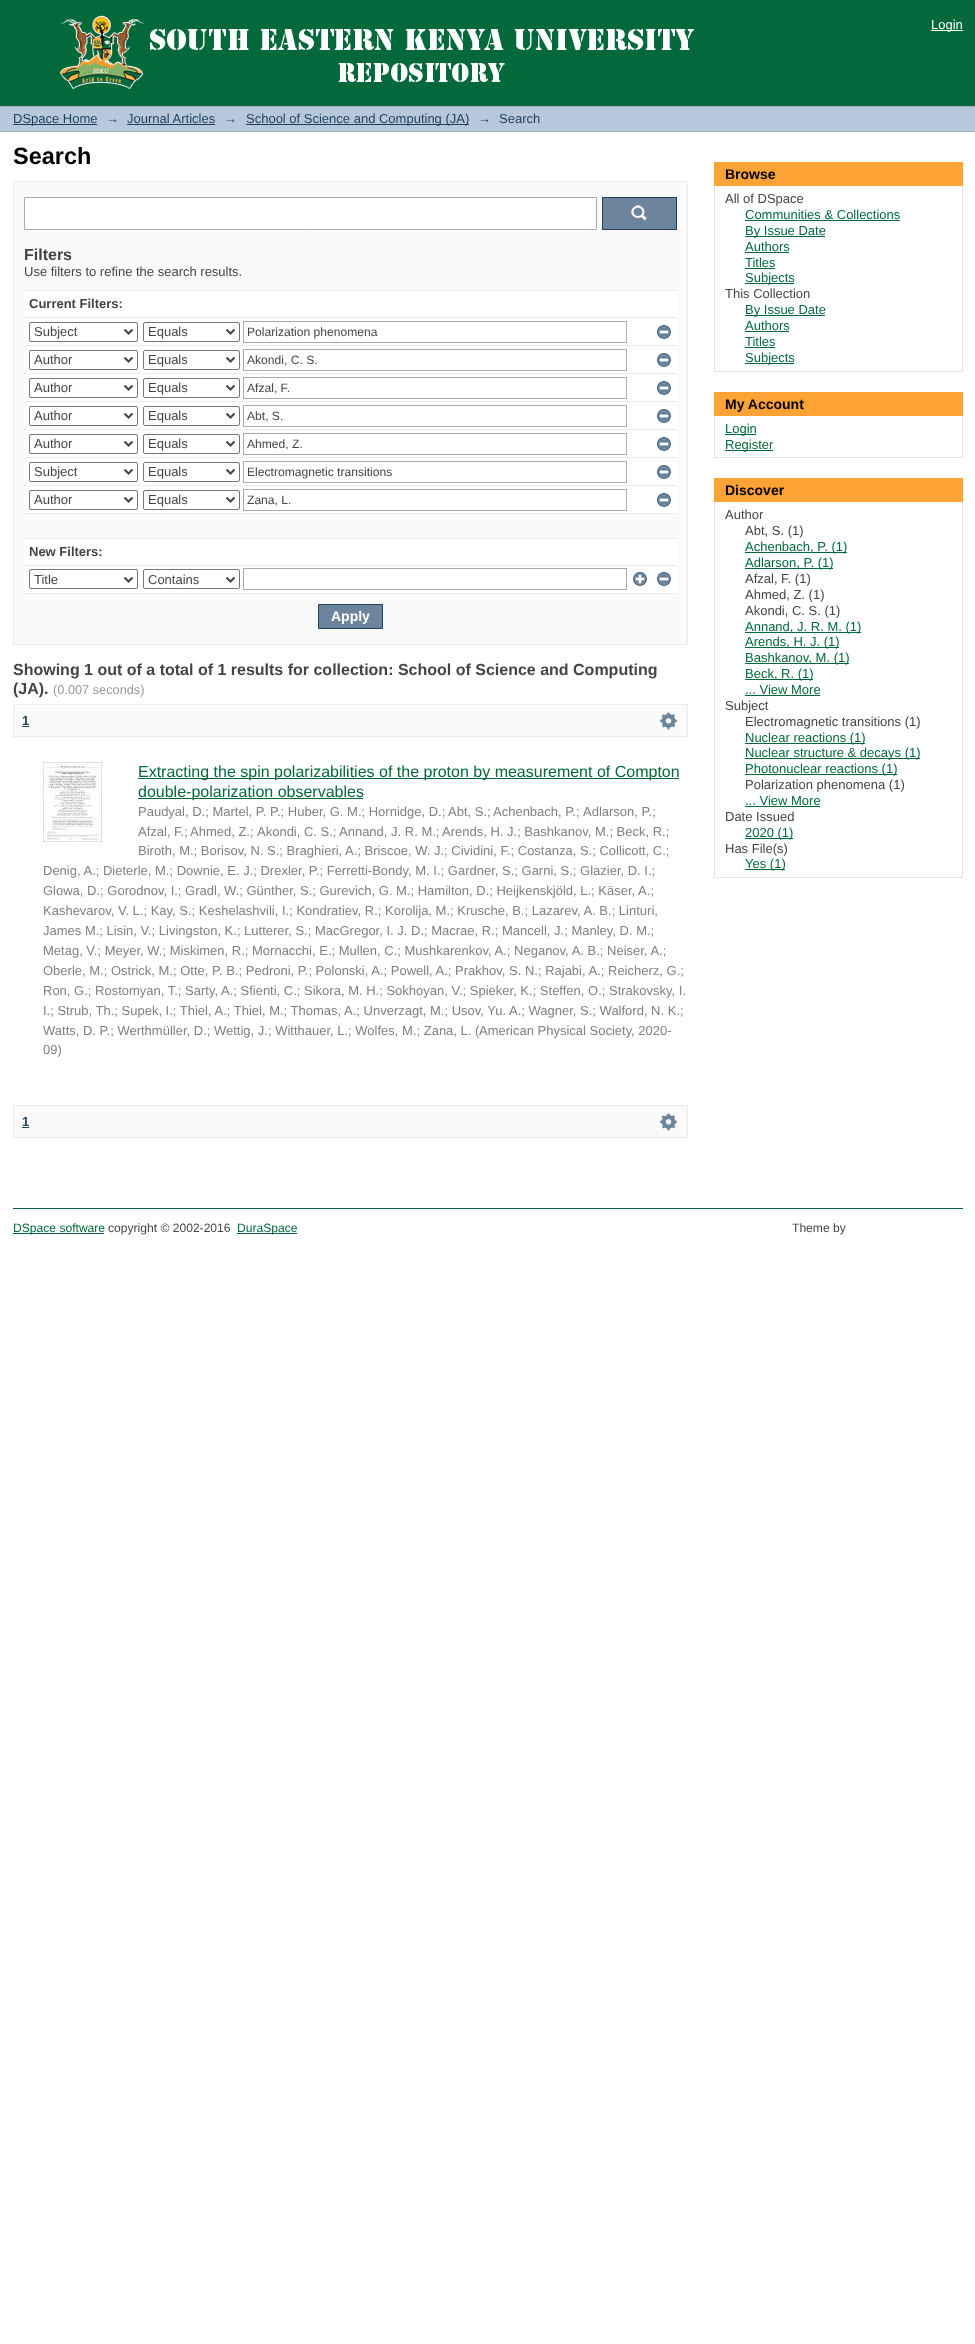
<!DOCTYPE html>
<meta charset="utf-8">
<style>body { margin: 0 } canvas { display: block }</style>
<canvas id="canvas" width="975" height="2344"></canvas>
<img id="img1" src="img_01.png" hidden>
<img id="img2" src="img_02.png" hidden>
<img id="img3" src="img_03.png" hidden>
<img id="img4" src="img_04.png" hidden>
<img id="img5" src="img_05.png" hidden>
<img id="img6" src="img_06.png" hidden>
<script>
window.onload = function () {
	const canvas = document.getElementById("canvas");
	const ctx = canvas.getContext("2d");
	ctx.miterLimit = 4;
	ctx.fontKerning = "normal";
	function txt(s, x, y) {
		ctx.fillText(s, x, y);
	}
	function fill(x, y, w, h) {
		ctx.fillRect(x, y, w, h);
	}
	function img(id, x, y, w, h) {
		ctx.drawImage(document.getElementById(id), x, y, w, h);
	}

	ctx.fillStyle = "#FFFFFF";
	fill(0, 0, 975, 2344);
	ctx.fillStyle = "#03693A";
	fill(0, 0, 975, 106);
	img("img1", 60, 15, 634, 74);
	ctx.fillStyle = "#FFFFFF";
	fill(931, 30, 32, 1);
	ctx.fillStyle = "#B6C8D9";
	fill(0, 107, 975, 24);
	ctx.fillStyle = "#9CACBA";
	fill(0, 106, 975, 1);
	fill(0, 131, 975, 1);
	ctx.fillStyle = "#1F3F5E";
	fill(13, 124, 84, 1);
	fill(127, 124, 88, 1);
	fill(246, 124, 223, 1);
	ctx.fillStyle = "#FAFAFA";
	ctx.beginPath();
	ctx.rect(13.5, 181.5, 674, 463);
	ctx.fill();
	ctx.strokeStyle = "#EBEBEB";
	ctx.stroke();
	ctx.fillStyle = "#FFFFFF";
	ctx.beginPath();
	ctx.rect(24.5, 197.5, 572, 32);
	ctx.fill();
	ctx.strokeStyle = "#AAAAAA";
	ctx.stroke();
	ctx.fillStyle = "#6D859C";
	fill(603, 198, 73, 31);
	img("img2", 631, 205, 16, 16);
	ctx.strokeStyle = "#1F3F5E";
	ctx.strokeRect(602.5, 197.5, 74, 32);
	ctx.fillStyle = "#FFFFFF";
	fill(24, 291, 653, 302);
	ctx.fillStyle = "#EBEBEB";
	fill(23, 290, 654, 1);
	fill(23, 317, 654, 1);
	ctx.beginPath();
	ctx.roundRect(29.5, 322.5, 108, 19, 1.5);
	ctx.strokeStyle = "#767676";
	ctx.stroke();
	ctx.beginPath();
	ctx.moveTo(124.5, 329.5);
	ctx.lineTo(128.5, 333.5);
	ctx.lineTo(132.5, 329.5);
	ctx.strokeStyle = "#444444";
	ctx.lineWidth = 2;
	ctx.stroke();
	ctx.beginPath();
	ctx.roundRect(143.5, 322.5, 96, 19, 1.5);
	ctx.strokeStyle = "#767676";
	ctx.lineWidth = 1;
	ctx.stroke();
	ctx.beginPath();
	ctx.moveTo(226.5, 329.5);
	ctx.lineTo(230.5, 333.5);
	ctx.lineTo(234.5, 329.5);
	ctx.strokeStyle = "#444444";
	ctx.lineWidth = 2;
	ctx.stroke();
	ctx.strokeStyle = "#AAAAAA";
	ctx.lineWidth = 1;
	ctx.strokeRect(243.5, 321.5, 383, 21);
	img("img3", 657, 325, 14, 14);
	fill(23, 345, 654, 1);
	ctx.beginPath();
	ctx.roundRect(29.5, 350.5, 108, 19, 1.5);
	ctx.strokeStyle = "#767676";
	ctx.stroke();
	ctx.beginPath();
	ctx.moveTo(124.5, 357.5);
	ctx.lineTo(128.5, 361.5);
	ctx.lineTo(132.5, 357.5);
	ctx.strokeStyle = "#444444";
	ctx.lineWidth = 2;
	ctx.stroke();
	ctx.beginPath();
	ctx.roundRect(143.5, 350.5, 96, 19, 1.5);
	ctx.strokeStyle = "#767676";
	ctx.lineWidth = 1;
	ctx.stroke();
	ctx.beginPath();
	ctx.moveTo(226.5, 357.5);
	ctx.lineTo(230.5, 361.5);
	ctx.lineTo(234.5, 357.5);
	ctx.strokeStyle = "#444444";
	ctx.lineWidth = 2;
	ctx.stroke();
	ctx.strokeStyle = "#AAAAAA";
	ctx.lineWidth = 1;
	ctx.strokeRect(243.5, 349.5, 383, 21);
	img("img3", 657, 353, 14, 14);
	fill(23, 373, 654, 1);
	ctx.beginPath();
	ctx.roundRect(29.5, 378.5, 108, 19, 1.5);
	ctx.strokeStyle = "#767676";
	ctx.stroke();
	ctx.beginPath();
	ctx.moveTo(124.5, 385.5);
	ctx.lineTo(128.5, 389.5);
	ctx.lineTo(132.5, 385.5);
	ctx.strokeStyle = "#444444";
	ctx.lineWidth = 2;
	ctx.stroke();
	ctx.beginPath();
	ctx.roundRect(143.5, 378.5, 96, 19, 1.5);
	ctx.strokeStyle = "#767676";
	ctx.lineWidth = 1;
	ctx.stroke();
	ctx.beginPath();
	ctx.moveTo(226.5, 385.5);
	ctx.lineTo(230.5, 389.5);
	ctx.lineTo(234.5, 385.5);
	ctx.strokeStyle = "#444444";
	ctx.lineWidth = 2;
	ctx.stroke();
	ctx.strokeStyle = "#AAAAAA";
	ctx.lineWidth = 1;
	ctx.strokeRect(243.5, 377.5, 383, 21);
	img("img3", 657, 381, 14, 14);
	fill(23, 401, 654, 1);
	ctx.beginPath();
	ctx.roundRect(29.5, 406.5, 108, 19, 1.5);
	ctx.strokeStyle = "#767676";
	ctx.stroke();
	ctx.beginPath();
	ctx.moveTo(124.5, 413.5);
	ctx.lineTo(128.5, 417.5);
	ctx.lineTo(132.5, 413.5);
	ctx.strokeStyle = "#444444";
	ctx.lineWidth = 2;
	ctx.stroke();
	ctx.beginPath();
	ctx.roundRect(143.5, 406.5, 96, 19, 1.5);
	ctx.strokeStyle = "#767676";
	ctx.lineWidth = 1;
	ctx.stroke();
	ctx.beginPath();
	ctx.moveTo(226.5, 413.5);
	ctx.lineTo(230.5, 417.5);
	ctx.lineTo(234.5, 413.5);
	ctx.strokeStyle = "#444444";
	ctx.lineWidth = 2;
	ctx.stroke();
	ctx.strokeStyle = "#AAAAAA";
	ctx.lineWidth = 1;
	ctx.strokeRect(243.5, 405.5, 383, 21);
	img("img3", 657, 409, 14, 14);
	fill(23, 429, 654, 1);
	ctx.beginPath();
	ctx.roundRect(29.5, 434.5, 108, 19, 1.5);
	ctx.strokeStyle = "#767676";
	ctx.stroke();
	ctx.beginPath();
	ctx.moveTo(124.5, 441.5);
	ctx.lineTo(128.5, 445.5);
	ctx.lineTo(132.5, 441.5);
	ctx.strokeStyle = "#444444";
	ctx.lineWidth = 2;
	ctx.stroke();
	ctx.beginPath();
	ctx.roundRect(143.5, 434.5, 96, 19, 1.5);
	ctx.strokeStyle = "#767676";
	ctx.lineWidth = 1;
	ctx.stroke();
	ctx.beginPath();
	ctx.moveTo(226.5, 441.5);
	ctx.lineTo(230.5, 445.5);
	ctx.lineTo(234.5, 441.5);
	ctx.strokeStyle = "#444444";
	ctx.lineWidth = 2;
	ctx.stroke();
	ctx.strokeStyle = "#AAAAAA";
	ctx.lineWidth = 1;
	ctx.strokeRect(243.5, 433.5, 383, 21);
	img("img3", 657, 437, 14, 14);
	fill(23, 457, 654, 1);
	ctx.beginPath();
	ctx.roundRect(29.5, 462.5, 108, 19, 1.5);
	ctx.strokeStyle = "#767676";
	ctx.stroke();
	ctx.beginPath();
	ctx.moveTo(124.5, 469.5);
	ctx.lineTo(128.5, 473.5);
	ctx.lineTo(132.5, 469.5);
	ctx.strokeStyle = "#444444";
	ctx.lineWidth = 2;
	ctx.stroke();
	ctx.beginPath();
	ctx.roundRect(143.5, 462.5, 96, 19, 1.5);
	ctx.strokeStyle = "#767676";
	ctx.lineWidth = 1;
	ctx.stroke();
	ctx.beginPath();
	ctx.moveTo(226.5, 469.5);
	ctx.lineTo(230.5, 473.5);
	ctx.lineTo(234.5, 469.5);
	ctx.strokeStyle = "#444444";
	ctx.lineWidth = 2;
	ctx.stroke();
	ctx.strokeStyle = "#AAAAAA";
	ctx.lineWidth = 1;
	ctx.strokeRect(243.5, 461.5, 383, 21);
	img("img3", 657, 465, 14, 14);
	fill(23, 485, 654, 1);
	ctx.beginPath();
	ctx.roundRect(29.5, 490.5, 108, 19, 1.5);
	ctx.strokeStyle = "#767676";
	ctx.stroke();
	ctx.beginPath();
	ctx.moveTo(124.5, 497.5);
	ctx.lineTo(128.5, 501.5);
	ctx.lineTo(132.5, 497.5);
	ctx.strokeStyle = "#444444";
	ctx.lineWidth = 2;
	ctx.stroke();
	ctx.beginPath();
	ctx.roundRect(143.5, 490.5, 96, 19, 1.5);
	ctx.strokeStyle = "#767676";
	ctx.lineWidth = 1;
	ctx.stroke();
	ctx.beginPath();
	ctx.moveTo(226.5, 497.5);
	ctx.lineTo(230.5, 501.5);
	ctx.lineTo(234.5, 497.5);
	ctx.strokeStyle = "#444444";
	ctx.lineWidth = 2;
	ctx.stroke();
	ctx.strokeStyle = "#AAAAAA";
	ctx.lineWidth = 1;
	ctx.strokeRect(243.5, 489.5, 383, 21);
	img("img3", 657, 493, 14, 14);
	ctx.fillStyle = "#FAFAFA";
	fill(24, 514, 653, 24);
	ctx.fillStyle = "#EBEBEB";
	fill(23, 513, 654, 1);
	fill(23, 538, 654, 1);
	fill(23, 565, 654, 1);
	ctx.beginPath();
	ctx.roundRect(29.5, 569.5, 108, 19, 1.5);
	ctx.strokeStyle = "#767676";
	ctx.stroke();
	ctx.beginPath();
	ctx.moveTo(124.5, 577.5);
	ctx.lineTo(128.5, 581.5);
	ctx.lineTo(132.5, 577.5);
	ctx.strokeStyle = "#444444";
	ctx.lineWidth = 2;
	ctx.stroke();
	ctx.beginPath();
	ctx.roundRect(143.5, 569.5, 96, 19, 1.5);
	ctx.strokeStyle = "#767676";
	ctx.lineWidth = 1;
	ctx.stroke();
	ctx.beginPath();
	ctx.moveTo(226.5, 577.5);
	ctx.lineTo(230.5, 581.5);
	ctx.lineTo(234.5, 577.5);
	ctx.strokeStyle = "#444444";
	ctx.lineWidth = 2;
	ctx.stroke();
	ctx.strokeStyle = "#AAAAAA";
	ctx.lineWidth = 1;
	ctx.strokeRect(243.5, 568.5, 383, 21);
	img("img4", 633, 572, 14, 14);
	img("img3", 657, 572, 14, 14);
	fill(23, 593, 654, 1);
	ctx.fillStyle = "#6D859C";
	ctx.beginPath();
	ctx.rect(318.5, 604.5, 64, 24);
	ctx.fill();
	ctx.strokeStyle = "#1F3F5E";
	ctx.stroke();
	ctx.fillStyle = "#FAFAFA";
	ctx.beginPath();
	ctx.rect(13.5, 704.5, 674, 32);
	ctx.fill();
	ctx.strokeStyle = "#EBEBEB";
	ctx.stroke();
	ctx.fillStyle = "#1F3F5E";
	fill(22, 726, 7, 1);
	img("img5", 660, 712, 17, 18);
	img("img6", 43, 762, 59, 80);
	ctx.fillStyle = "#03693A";
	fill(138, 778, 541, 1);
	fill(138, 798, 225, 1);
	ctx.fillStyle = "#FAFAFA";
	ctx.beginPath();
	ctx.rect(13.5, 1105.5, 674, 32);
	ctx.fill();
	ctx.stroke();
	ctx.fillStyle = "#1F3F5E";
	fill(22, 1127, 7, 1);
	img("img5", 660, 1113, 17, 18);
	ctx.fillStyle = "#FDA336";
	fill(714, 162, 249, 24);
	ctx.fillStyle = "#D8E8EB";
	fill(962, 186, 1, 186);
	fill(714, 371, 249, 1);
	fill(714, 186, 1, 186);
	ctx.fillStyle = "#03693A";
	fill(745, 220, 155, 1);
	fill(745, 236, 80, 1);
	fill(745, 252, 44, 1);
	fill(745, 268, 30, 1);
	fill(745, 283, 49, 1);
	fill(745, 315, 80, 1);
	fill(745, 331, 44, 1);
	fill(745, 347, 30, 1);
	fill(745, 363, 49, 1);
	ctx.fillStyle = "#FDA336";
	fill(714, 392, 249, 24);
	ctx.fillStyle = "#D8E8EB";
	fill(962, 416, 1, 42);
	fill(714, 457, 249, 1);
	fill(714, 416, 1, 42);
	ctx.fillStyle = "#03693A";
	fill(725, 434, 31, 1);
	fill(725, 450, 48, 1);
	ctx.fillStyle = "#FDA336";
	fill(714, 478, 249, 24);
	ctx.fillStyle = "#D8E8EB";
	fill(962, 502, 1, 376);
	fill(714, 877, 249, 1);
	fill(714, 502, 1, 376);
	ctx.fillStyle = "#03693A";
	fill(745, 552, 102, 1);
	fill(745, 568, 88, 1);
	fill(745, 632, 116, 1);
	fill(745, 647, 94, 1);
	fill(745, 663, 104, 1);
	fill(745, 679, 68, 1);
	fill(745, 695, 75, 1);
	fill(745, 743, 120, 1);
	fill(745, 758, 175, 1);
	fill(745, 774, 152, 1);
	fill(745, 806, 75, 1);
	fill(745, 838, 48, 1);
	fill(745, 869, 40, 1);
	fill(13, 1208, 950, 1);
	fill(13, 1233, 91, 1);
	fill(237, 1233, 60, 1);
	ctx.font = "13px Liberation Sans";
	ctx.fillStyle = "#FFFFFF";
	txt("Login", 931, 29);
	ctx.fillStyle = "#1F3F5E";
	txt("DSpace Home", 13, 123);
	txt("→", 106, 123);
	txt("Journal Articles", 127, 123);
	txt("→", 224, 123);
	txt("School of Science and Computing (JA)", 246, 123);
	txt("→", 478, 123);
	txt("Search", 499, 123);
	ctx.font = "bold 23.5px Liberation Sans";
	ctx.fillStyle = "#000000";
	txt("Search", 13, 164);
	ctx.font = "bold 16px Liberation Sans";
	ctx.fillStyle = "#444444";
	txt("Filters", 24, 260);
	ctx.font = "13px Liberation Sans";
	txt("Use filters to refine the search results.", 24, 276);
	ctx.font = "bold 13px Liberation Sans";
	txt("Current Filters:", 29, 308);
	ctx.font = "13px Liberation Sans";
	txt("Subject", 34, 336);
	txt("Equals", 148, 336);
	ctx.font = "12.1px Liberation Sans";
	txt("Polarization phenomena", 247, 336);
	ctx.font = "13px Liberation Sans";
	txt("Author", 34, 364);
	txt("Equals", 148, 364);
	ctx.font = "12.1px Liberation Sans";
	txt("Akondi, C. S.", 247, 364);
	ctx.font = "13px Liberation Sans";
	txt("Author", 34, 392);
	txt("Equals", 148, 392);
	ctx.font = "12.1px Liberation Sans";
	txt("Afzal, F.", 247, 392);
	ctx.font = "13px Liberation Sans";
	txt("Author", 34, 420);
	txt("Equals", 148, 420);
	ctx.font = "12.1px Liberation Sans";
	txt("Abt, S.", 247, 420);
	ctx.font = "13px Liberation Sans";
	txt("Author", 34, 448);
	txt("Equals", 148, 448);
	ctx.font = "12.1px Liberation Sans";
	txt("Ahmed, Z.", 247, 448);
	ctx.font = "13px Liberation Sans";
	txt("Subject", 34, 476);
	txt("Equals", 148, 476);
	ctx.font = "12.1px Liberation Sans";
	txt("Electromagnetic transitions", 247, 476);
	ctx.font = "13px Liberation Sans";
	txt("Author", 34, 504);
	txt("Equals", 148, 504);
	ctx.font = "12.1px Liberation Sans";
	txt("Zana, L.", 247, 504);
	ctx.font = "bold 13px Liberation Sans";
	txt("New Filters:", 29, 556);
	ctx.font = "13px Liberation Sans";
	txt("Title", 34, 584);
	txt("Contains", 148, 584);
	ctx.font = "bold 14px Liberation Sans";
	ctx.fillStyle = "#FFFFFF";
	txt("Apply", 331, 621);
	ctx.font = "bold 16px Liberation Sans";
	ctx.fillStyle = "#444444";
	txt("Showing 1 out of a total of 1 results for collection: School of Science and Computing", 13, 675);
	txt("(JA).", 13, 694);
	ctx.font = "12.75px Liberation Sans";
	ctx.fillStyle = "#999999";
	txt("(0.007 seconds)", 53, 694);
	ctx.font = "bold 13px Liberation Sans";
	ctx.fillStyle = "#1F3F5E";
	txt("1", 22, 725);
	ctx.font = "16px Liberation Sans";
	ctx.fillStyle = "#03693A";
	txt("Extracting the spin polarizabilities of the proton by measurement of Compton", 138, 777);
	txt("double-polarization observables", 138, 797);
	ctx.font = "13px Liberation Sans";
	ctx.fillStyle = "#808080";
	txt("Paudyal, D.; Martel, P. P.; Huber, G. M.; Hornidge, D.;", 138, 816);
	txt("Abt, S.;", 448, 816);
	txt("Achenbach, P.;", 493, 816);
	txt("Adlarson, P.;", 583, 816);
	txt("Afzal, F.;", 138, 836);
	txt("Ahmed, Z.;", 190, 836);
	txt("Akondi, C. S.;", 257, 836);
	txt("Annand, J. R. M.;", 339, 836);
	txt("Arends, H. J.; Bashkanov, M.; Beck, R.;", 442, 836);
	txt("Biroth, M.; Borisov, N. S.; Braghieri, A.; Briscoe, W. J.; Cividini, F.; Costanza, S.; Collicott, C.;", 138, 855);
	txt("Denig, A.; Dieterle, M.; Downie, E. J.; Drexler, P.; Ferretti-Bondy, M. I.; Gardner, S.; Garni, S.; Glazier, D. I.;", 43, 875);
	txt("Glowa, D.; Gorodnov, I.; Gradl, W.; Günther, S.; Gurevich, G. M.; Hamilton, D.; Heijkenskjöld, L.; Käser, A.;", 43, 895);
	txt("Kashevarov, V. L.; Kay, S.; Keshelashvili, I.; Kondratiev, R.; Korolija, M.; Krusche, B.; Lazarev, A. B.; Linturi,", 43, 915);
	txt("James M.; Lisin, V.; Livingston, K.; Lutterer, S.; MacGregor, I. J. D.; Macrae, R.; Mancell, J.; Manley, D. M.;", 43, 935);
	txt("Metag, V.; Meyer, W.; Miskimen, R.; Mornacchi, E.; Mullen, C.; Mushkarenkov, A.; Neganov, A. B.; Neiser, A.;", 43, 955);
	txt("Oberle, M.; Ostrick, M.; Otte, P. B.; Pedroni, P.; Polonski, A.; Powell, A.; Prakhov, S. N.; Rajabi, A.; Reicherz, G.;", 43, 975);
	txt("Ron, G.; Rostomyan, T.; Sarty, A.; Sfienti, C.; Sikora, M. H.; Sokhoyan, V.; Spieker, K.; Steffen, O.; Strakovsky, I.", 43, 995);
	txt("I.; Strub, Th.; Supek, I.; Thiel, A.; Thiel, M.; Thomas, A.; Unverzagt, M.; Usov, Yu. A.; Wagner, S.; Walford, N. K.;", 43, 1015);
	txt("Watts, D. P.; Werthmüller, D.; Wettig, J.; Witthauer, L.; Wolfes, M.; Zana, L. (", 43, 1035);
	txt("American Physical Society", 479, 1035);
	txt(", 2020-", 631, 1035);
	txt("09)", 43, 1054);
	ctx.font = "bold 13px Liberation Sans";
	ctx.fillStyle = "#1F3F5E";
	txt("1", 22, 1126);
	ctx.font = "bold 14px Liberation Sans";
	ctx.fillStyle = "#000000";
	txt("Browse", 725, 179);
	ctx.font = "13px Liberation Sans";
	ctx.fillStyle = "#444444";
	txt("All of DSpace", 725, 203);
	ctx.fillStyle = "#03693A";
	txt("Communities & Collections", 745, 219);
	txt("By Issue Date", 745, 235);
	txt("Authors", 745, 251);
	txt("Titles", 745, 267);
	txt("Subjects", 745, 282);
	ctx.fillStyle = "#444444";
	txt("This Collection", 725, 298);
	ctx.fillStyle = "#03693A";
	txt("By Issue Date", 745, 314);
	txt("Authors", 745, 330);
	txt("Titles", 745, 346);
	txt("Subjects", 745, 362);
	ctx.font = "bold 14px Liberation Sans";
	ctx.fillStyle = "#000000";
	txt("My Account", 725, 409);
	ctx.font = "13px Liberation Sans";
	ctx.fillStyle = "#03693A";
	txt("Login", 725, 433);
	txt("Register", 725, 449);
	ctx.font = "bold 14px Liberation Sans";
	ctx.fillStyle = "#000000";
	txt("Discover", 725, 495);
	ctx.font = "13px Liberation Sans";
	ctx.fillStyle = "#444444";
	txt("Author", 725, 519);
	txt("Abt, S. (1)", 745, 535);
	ctx.fillStyle = "#03693A";
	txt("Achenbach, P. (1)", 745, 551);
	txt("Adlarson, P. (1)", 745, 567);
	ctx.fillStyle = "#444444";
	txt("Afzal, F. (1)", 745, 583);
	txt("Ahmed, Z. (1)", 745, 599);
	txt("Akondi, C. S. (1)", 745, 615);
	ctx.fillStyle = "#03693A";
	txt("Annand, J. R. M. (1)", 745, 631);
	txt("Arends, H. J. (1)", 745, 646);
	txt("Bashkanov, M. (1)", 745, 662);
	txt("Beck, R. (1)", 745, 678);
	txt("... View More", 745, 694);
	ctx.fillStyle = "#444444";
	txt("Subject", 725, 710);
	txt("Electromagnetic transitions (1)", 745, 726);
	ctx.fillStyle = "#03693A";
	txt("Nuclear reactions (1)", 745, 742);
	txt("Nuclear structure & decays (1)", 745, 757);
	txt("Photonuclear reactions (1)", 745, 773);
	ctx.fillStyle = "#444444";
	txt("Polarization phenomena (1)", 745, 789);
	ctx.fillStyle = "#03693A";
	txt("... View More", 745, 805);
	ctx.fillStyle = "#444444";
	txt("Date Issued", 725, 821);
	ctx.fillStyle = "#03693A";
	txt("2020 (1)", 745, 837);
	ctx.fillStyle = "#444444";
	txt("Has File(s)", 725, 853);
	ctx.fillStyle = "#03693A";
	txt("Yes (1)", 745, 868);
	ctx.font = "12.1px Liberation Sans";
	txt("DSpace software", 13, 1232);
	ctx.fillStyle = "#444444";
	txt("copyright © 2002-2016", 108, 1232);
	ctx.fillStyle = "#03693A";
	txt("DuraSpace", 237, 1232);
	ctx.fillStyle = "#444444";
	txt("Theme by", 792, 1232);
};
</script>
